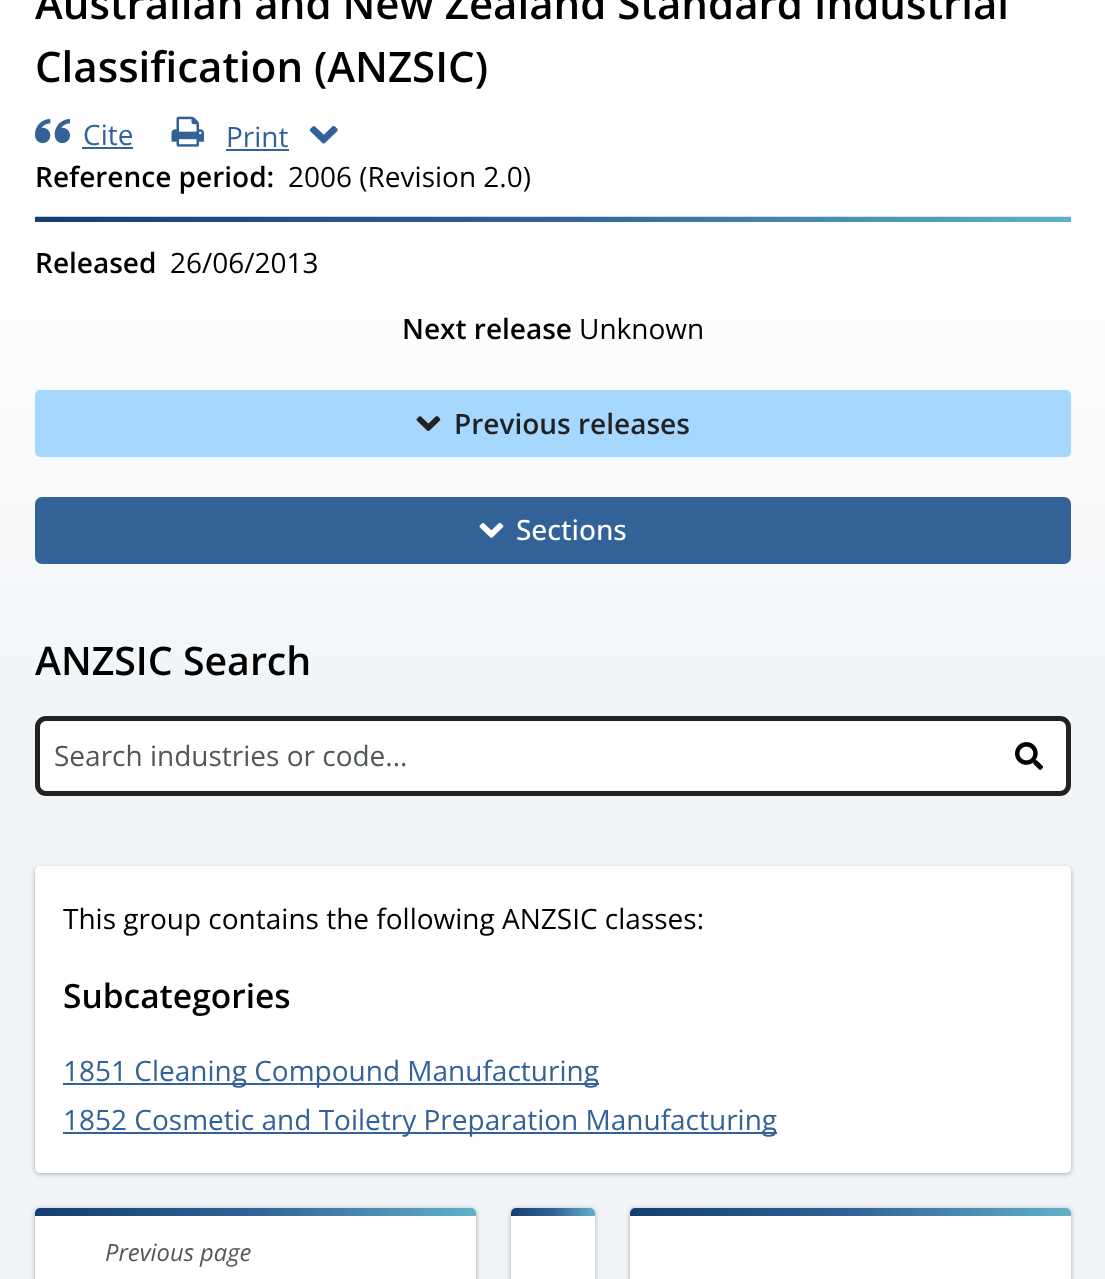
<!DOCTYPE html>
<meta charset="utf-8">
<style>body { margin: 0 } canvas { display: block }</style>
<canvas id="canvas" width="1105" height="1279"></canvas>
<img id="img1" src="img_01.png" hidden>
<img id="img2" src="img_02.png" hidden>
<img id="img3" src="img_03.png" hidden>
<img id="img4" src="img_04.png" hidden>
<img id="img5" src="img_05.png" hidden>
<img id="img6" src="img_06.png" hidden>
<img id="img7" src="img_07.png" hidden>
<script>
window.onload = function () {
	const canvas = document.getElementById("canvas");
	const ctx = canvas.getContext("2d");
	ctx.miterLimit = 4;
	ctx.fontKerning = "normal";
	function txt(s, x, y) {
		ctx.fillText(s, x, y);
	}
	function fill(x, y, w, h) {
		ctx.fillRect(x, y, w, h);
	}
	function round(x, y, w, h, r) {
		ctx.beginPath();
		ctx.roundRect(x, y, w, h, r);
		ctx.fill();
	}
	function img(id, x, y, w, h) {
		ctx.drawImage(document.getElementById(id), x, y, w, h);
	}
	let gradient;

	ctx.fillStyle = "#FFFFFF";
	fill(0, 0, 1105, 1279);
	gradient = ctx.createLinearGradient(553, -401, 553, 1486);
	gradient.addColorStop(0.33, "#FFFFFF");
	gradient.addColorStop(0.58, "#F2F5F8");
	ctx.fillStyle = gradient;
	fill(0, 312, 1105, 967);
	img("img1", 35, 119, 35, 25);
	ctx.fillStyle = "#326297";
	fill(82, 147, 51, 2);
	img("img2", 171, 116, 33, 31);
	fill(226, 149, 63, 2);
	img("img3", 309, 126, 29, 18);
	img("img4", 35, 216, 1036, 6);
	ctx.fillStyle = "#A6D8FF";
	round(35, 390, 1036, 67, 5);
	img("img5", 416, 416, 25, 16);
	ctx.fillStyle = "#326297";
	round(35, 497, 1036, 67, 7);
	img("img6", 479, 522, 25, 16);
	ctx.fillStyle = "#FFFFFF";
	ctx.beginPath();
	ctx.roundRect(37.5, 718.5, 1031, 75, 8.5);
	ctx.fill();
	ctx.strokeStyle = "#222222";
	ctx.lineWidth = 5;
	ctx.stroke();
	img("img7", 1015, 742, 28, 28);
	ctx.fillStyle = "rgba(0, 0, 0, 0.3)";
	ctx.filter = "blur(2.5px)";
	ctx.beginPath();
	ctx.roundRect(35, 868, 1036, 306, 5);
	ctx.fill();
	ctx.filter = "none";
	ctx.fillStyle = "#FFFFFF";
	round(35, 866, 1036, 307, 5);
	ctx.fillStyle = "#326297";
	fill(63, 1083, 536, 2);
	fill(63, 1132, 714, 2);
	ctx.fillStyle = "rgba(0, 0, 0, 0.3)";
	ctx.filter = "blur(2.5px)";
	ctx.beginPath();
	ctx.roundRect(35, 1209, 441, 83, 5);
	ctx.fill();
	ctx.filter = "none";
	ctx.fillStyle = "#FFFFFF";
	round(35, 1208, 441, 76, 5);
	gradient = ctx.createLinearGradient(35, 1212, 476, 1212);
	gradient.addColorStop(0, "#153D73");
	gradient.addColorStop(0.5, "#326297");
	gradient.addColorStop(1, "#60B1C8");
	ctx.fillStyle = gradient;
	ctx.beginPath();
	ctx.roundRect(35, 1208, 441, 8, [5, 5, 0, 0]);
	ctx.fill();
	ctx.fillStyle = "rgba(0, 0, 0, 0.3)";
	ctx.filter = "blur(2.5px)";
	ctx.beginPath();
	ctx.roundRect(511, 1209, 84, 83, 5);
	ctx.fill();
	ctx.filter = "none";
	ctx.fillStyle = "#FFFFFF";
	round(511, 1208, 84, 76, 5);
	gradient = ctx.createLinearGradient(511, 1212, 595, 1212);
	gradient.addColorStop(0, "#153D73");
	gradient.addColorStop(0.5, "#326297");
	gradient.addColorStop(1, "#60B1C8");
	ctx.fillStyle = gradient;
	ctx.beginPath();
	ctx.roundRect(511, 1208, 84, 8, [5, 5, 0, 0]);
	ctx.fill();
	ctx.fillStyle = "rgba(0, 0, 0, 0.3)";
	ctx.filter = "blur(2.5px)";
	ctx.beginPath();
	ctx.roundRect(630, 1209, 441, 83, 5);
	ctx.fill();
	ctx.filter = "none";
	ctx.fillStyle = "#FFFFFF";
	round(630, 1208, 441, 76, 5);
	gradient = ctx.createLinearGradient(630, 1212, 1071, 1212);
	gradient.addColorStop(0, "#153D73");
	gradient.addColorStop(0.5, "#326297");
	gradient.addColorStop(1, "#60B1C8");
	ctx.fillStyle = gradient;
	ctx.beginPath();
	ctx.roundRect(630, 1208, 441, 8, [5, 5, 0, 0]);
	ctx.fill();
	ctx.font = "600 42px Open Sans";
	ctx.fillStyle = "#000000";
	txt("Australian and New Zealand Standard Industrial", 35, 19);
	txt("Classification (ANZSIC)", 35, 82);
	ctx.font = "28px Open Sans";
	ctx.fillStyle = "#326297";
	txt("Cite", 83, 145);
	txt("Print", 226, 147);
	ctx.font = "600 28px Open Sans";
	ctx.fillStyle = "#000000";
	txt("Reference period:", 35, 187);
	ctx.font = "28px Open Sans";
	txt("2006 (Revision 2.0)", 288, 187);
	ctx.font = "600 28px Open Sans";
	txt("Released", 35, 273);
	ctx.font = "28px Open Sans";
	txt("26/06/2013", 170, 273);
	ctx.font = "600 28px Open Sans";
	txt("Next release", 402, 339);
	ctx.font = "28px Open Sans";
	txt("Unknown", 579, 339);
	ctx.font = "600 28px Open Sans";
	ctx.fillStyle = "#222222";
	txt("Previous releases", 454, 434);
	ctx.font = "500 28px Open Sans";
	ctx.fillStyle = "#FFFFFF";
	txt("Sections", 516, 540);
	ctx.font = "600 39.25px Open Sans";
	ctx.fillStyle = "#000000";
	txt("ANZSIC Search", 35, 675);
	ctx.font = "28px Open Sans";
	ctx.fillStyle = "#52575A";
	txt("Search industries or code...", 54, 766);
	ctx.fillStyle = "#000000";
	txt("This group contains the following ANZSIC classes:", 63, 929);
	ctx.font = "600 33.5px Open Sans";
	txt("Subcategories", 63, 1008);
	ctx.font = "28px Open Sans";
	ctx.fillStyle = "#326297";
	txt("1851 Cleaning Compound Manufacturing", 63, 1081);
	txt("1852 Cosmetic and Toiletry Preparation Manufacturing", 63, 1130);
	ctx.font = "italic 23.75px Open Sans";
	ctx.fillStyle = "#52575A";
	txt("Previous page", 105, 1261);
};
</script>
